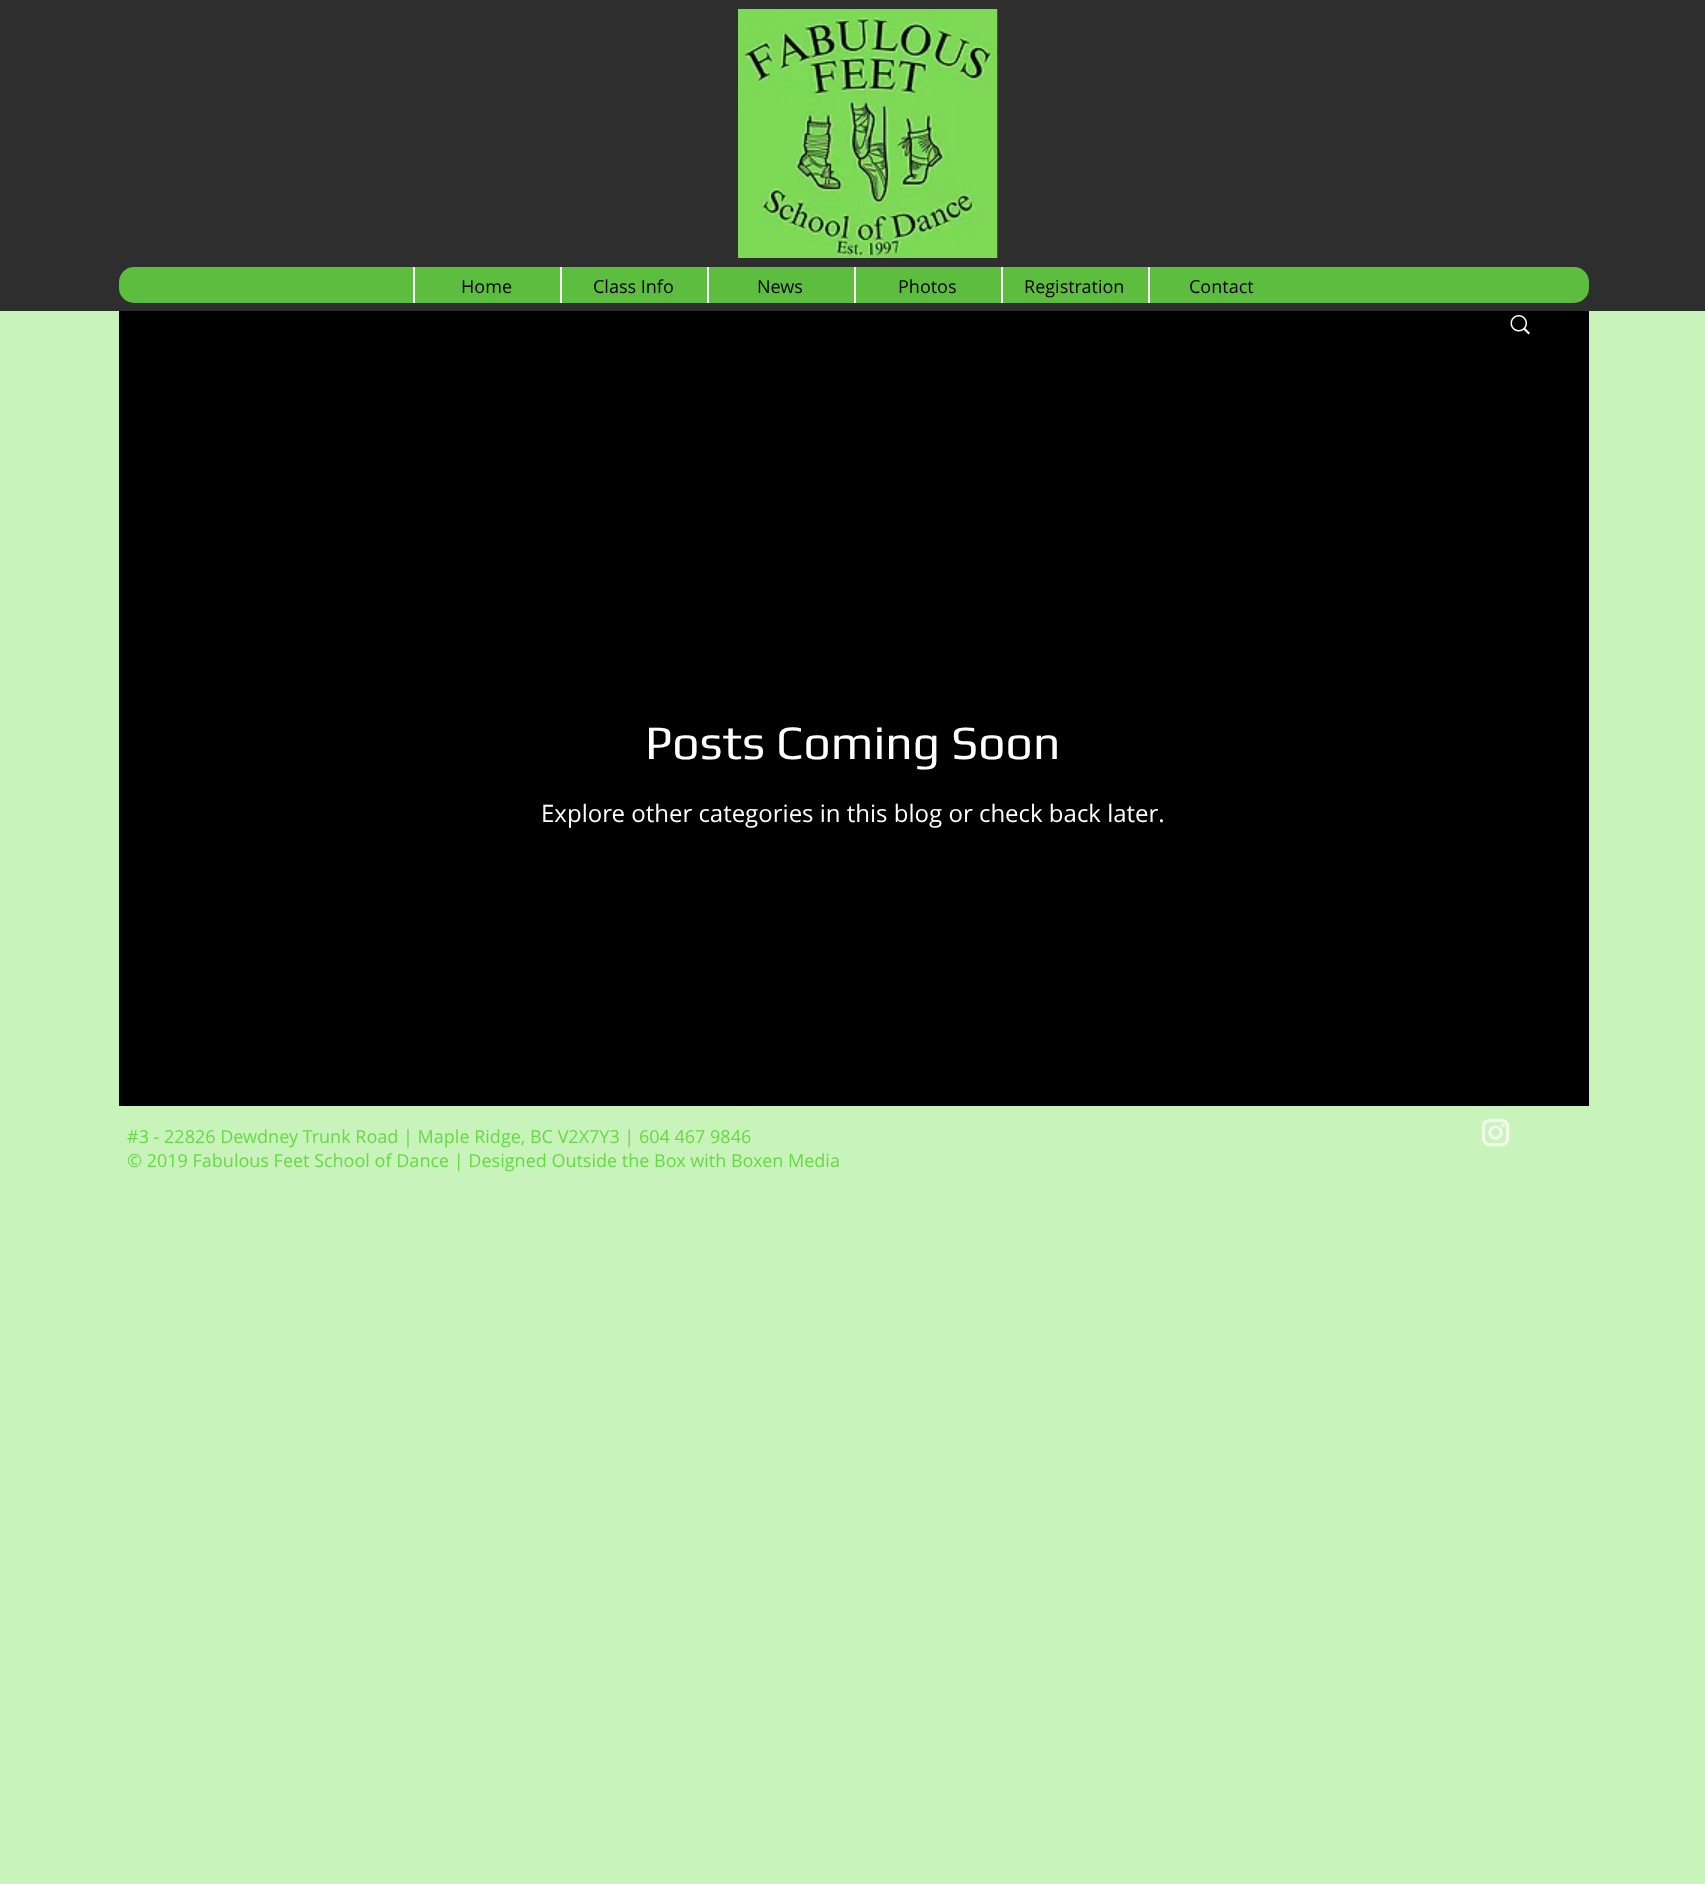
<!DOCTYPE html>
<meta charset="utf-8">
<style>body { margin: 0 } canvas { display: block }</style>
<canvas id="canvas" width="1705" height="1884"></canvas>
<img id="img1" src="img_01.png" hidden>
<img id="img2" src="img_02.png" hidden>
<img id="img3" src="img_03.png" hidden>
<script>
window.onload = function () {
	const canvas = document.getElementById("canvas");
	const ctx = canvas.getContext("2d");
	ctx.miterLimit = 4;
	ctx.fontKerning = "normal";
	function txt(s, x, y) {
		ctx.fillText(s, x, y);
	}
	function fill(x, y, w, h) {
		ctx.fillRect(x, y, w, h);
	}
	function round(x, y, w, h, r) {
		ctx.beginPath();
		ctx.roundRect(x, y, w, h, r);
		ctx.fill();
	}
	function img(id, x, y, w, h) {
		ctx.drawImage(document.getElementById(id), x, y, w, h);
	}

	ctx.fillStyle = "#C8F3BB";
	fill(0, 0, 1705, 1884);
	ctx.fillStyle = "#2F2E2E";
	fill(0, 0, 1705, 311);
	img("img1", 738, 9, 260, 249);
	ctx.fillStyle = "#5DBD3F";
	round(119, 267, 1470, 36, 15);
	ctx.fillStyle = "#FFFFFF";
	fill(413, 267, 2, 36);
	fill(560, 267, 2, 36);
	fill(707, 267, 2, 36);
	fill(854, 267, 2, 36);
	fill(1001, 267, 2, 36);
	fill(1148, 267, 2, 36);
	ctx.fillStyle = "#000000";
	fill(119, 311, 1470, 795);
	img("img2", 1510, 315, 20, 20);
	img("img3", 1481, 1118, 29, 29);
	ctx.font = "18px Open Sans";
	txt("Home", 461, 293);
	txt("Class Info", 593, 293);
	txt("News", 757, 293);
	txt("Photos", 898, 293);
	txt("Registration", 1024, 293);
	txt("Contact", 1189, 293);
	ctx.font = "48px Play";
	ctx.fillStyle = "#FFFFFF";
	txt("Posts Coming Soon", 645, 759);
	ctx.font = "24px Open Sans";
	txt("Explore other categories in this blog or check back later.", 541, 822);
	ctx.font = "18px Open Sans";
	ctx.fillStyle = "#66DA43";
	txt("#3 - 22826 Dewdney Trunk Road | Maple Ridge, BC V2X7Y3 | 604 467 9846", 127, 1143);
	txt("© 2019 Fabulous Feet School of Dance | Designed Outside the Box with Boxen Media", 127, 1167);
};
</script>
